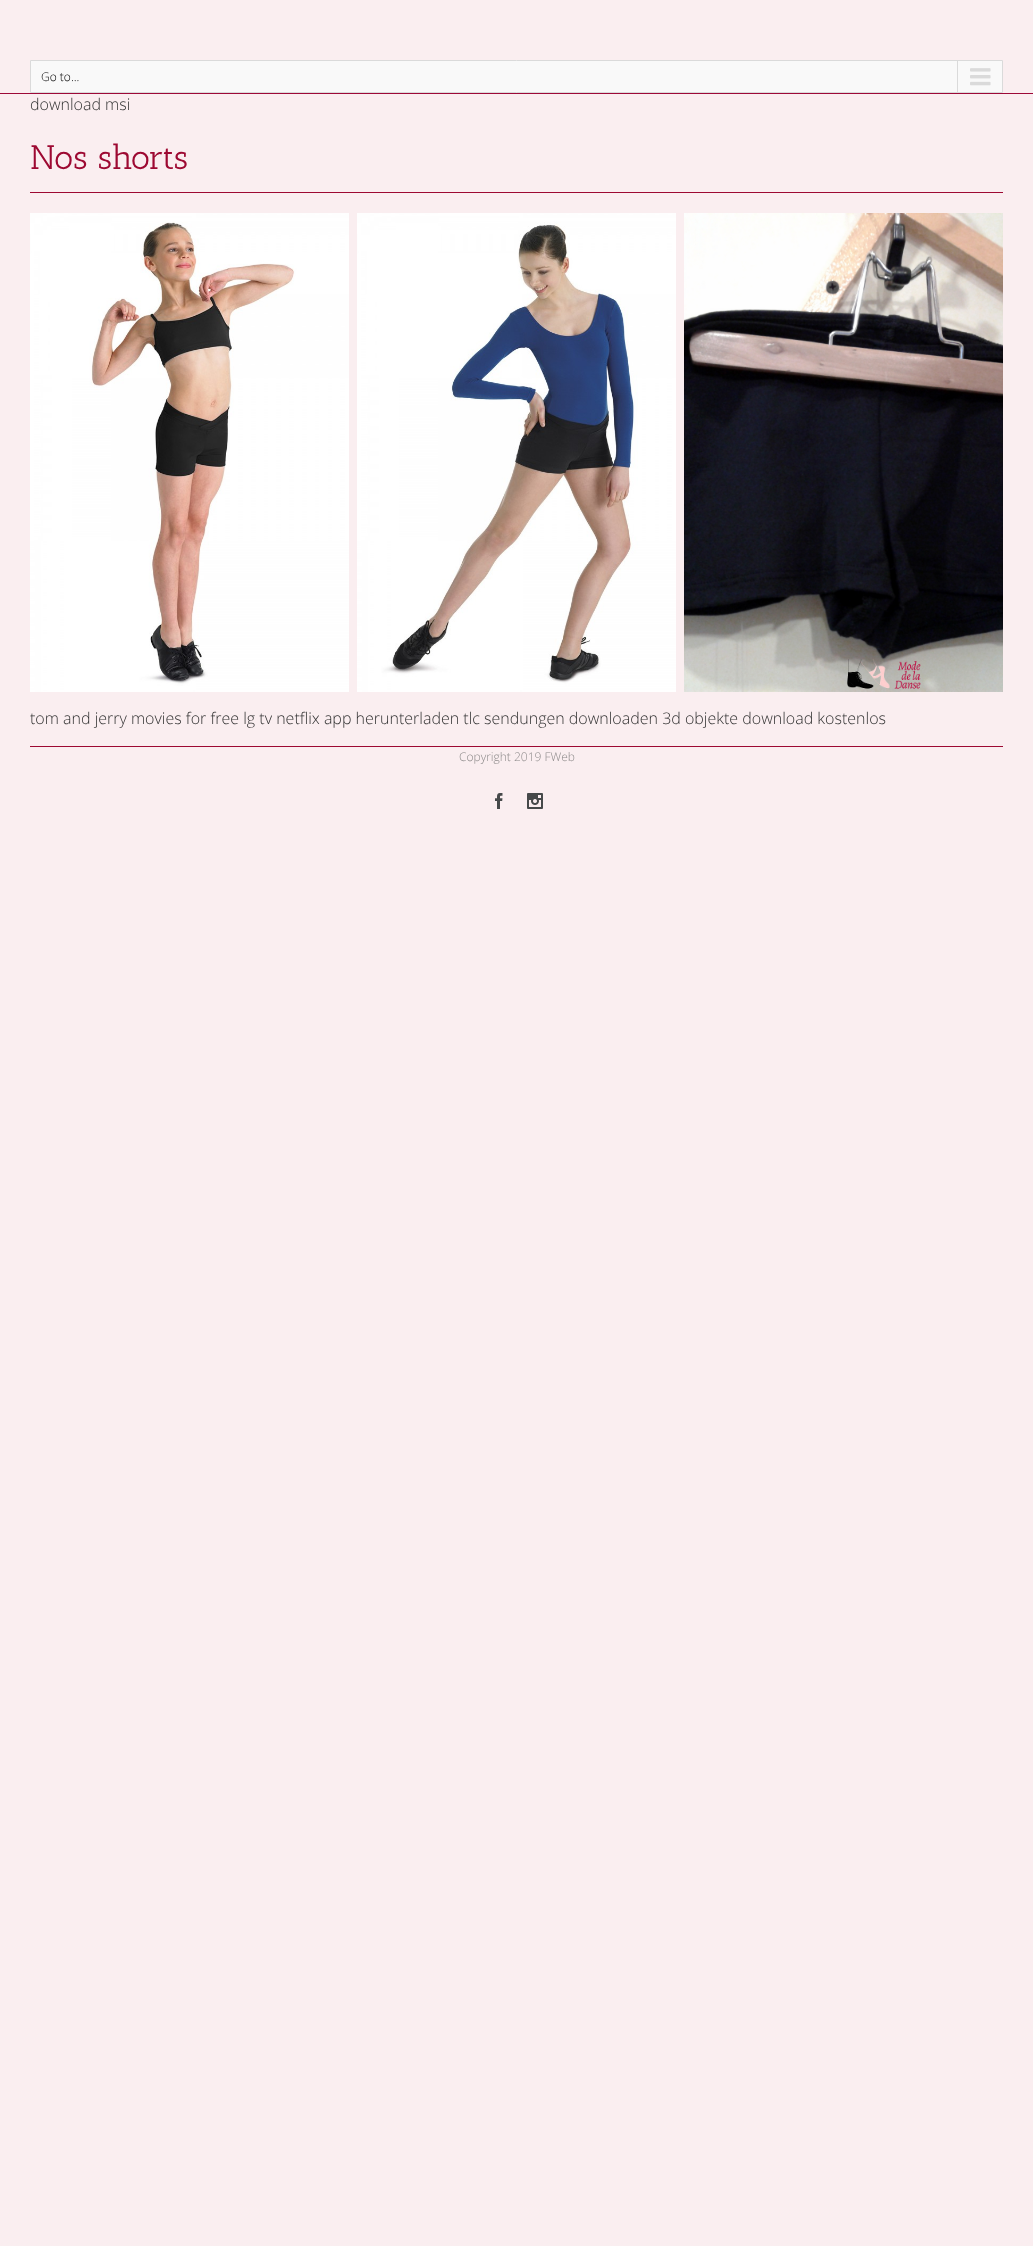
<!DOCTYPE html>
<meta charset="utf-8">
<style>body { margin: 0 } canvas { display: block }</style>
<canvas id="canvas" width="1033" height="2246"></canvas>
<img id="img1" src="img_01.png" hidden>
<img id="img2" src="img_02.png" hidden>
<img id="img3" src="img_03.png" hidden>
<img id="img4" src="img_04.png" hidden>
<img id="img5" src="img_05.png" hidden>
<img id="img6" src="img_06.png" hidden>
<script>
window.onload = function () {
	const canvas = document.getElementById("canvas");
	const ctx = canvas.getContext("2d");
	ctx.miterLimit = 4;
	ctx.fontKerning = "normal";
	function txt(s, x, y) {
		ctx.fillText(s, x, y);
	}
	function fill(x, y, w, h) {
		ctx.fillRect(x, y, w, h);
	}
	function img(id, x, y, w, h) {
		ctx.drawImage(document.getElementById(id), x, y, w, h);
	}

	ctx.fillStyle = "#FAEEF0";
	fill(0, 0, 1033, 2246);
	ctx.fillStyle = "#9D0938";
	fill(0, 93, 1033, 1);
	ctx.fillStyle = "#F9F9F9";
	ctx.beginPath();
	ctx.rect(30.5, 60.5, 972, 32);
	ctx.fill();
	ctx.strokeStyle = "#DADADA";
	ctx.stroke();
	ctx.fillStyle = "#DADADA";
	fill(957, 61, 1, 31);
	img("img1", 970, 68, 21, 18);
	ctx.fillStyle = "#9D0932";
	fill(30, 192, 973, 1);
	img("img2", 30, 213, 319, 479);
	img("img3", 357, 213, 319, 479);
	img("img4", 684, 213, 319, 479);
	fill(30, 746, 973, 1);
	img("img5", 495, 793, 8, 16);
	img("img6", 527, 793, 16, 16);
	ctx.font = "300 12px Open Sans";
	ctx.fillStyle = "#000000";
	txt("Go to...", 41, 81);
	ctx.font = "300 16px Open Sans";
	ctx.fillStyle = "#333333";
	txt("download msi", 30, 110);
	ctx.font = "34px Antic Slab";
	ctx.fillStyle = "#9D0932";
	txt("Nos shorts", 30, 169);
	ctx.font = "300 16px Open Sans";
	ctx.fillStyle = "#333333";
	txt("tom and jerry movies for free lg tv netflix app herunterladen tlc sendungen downloaden 3d objekte download kostenlos", 30, 724);
	ctx.font = "300 12px Open Sans";
	ctx.fillStyle = "#8C8989";
	txt("Copyright 2019 FWeb", 459, 761);
};
</script>
